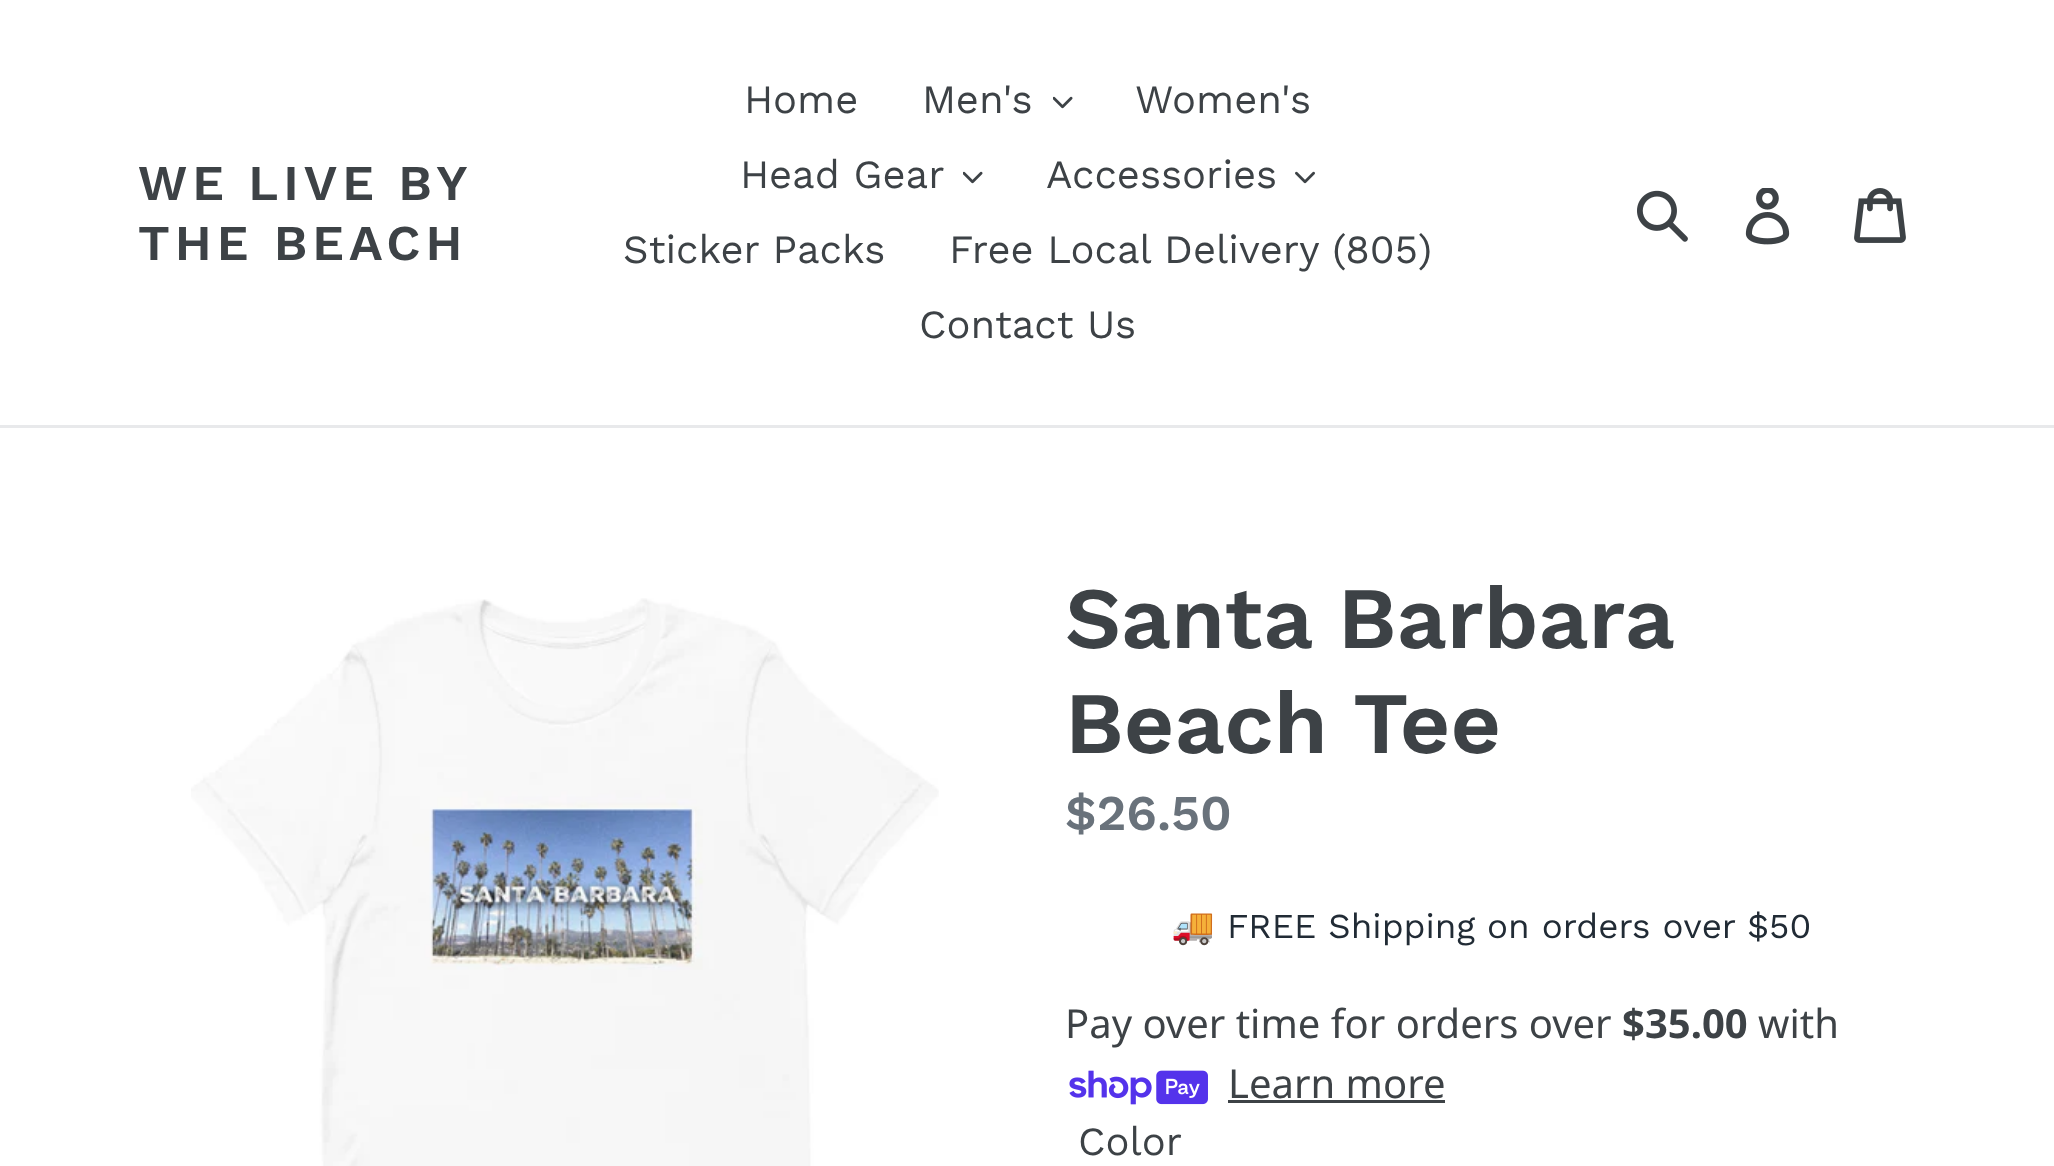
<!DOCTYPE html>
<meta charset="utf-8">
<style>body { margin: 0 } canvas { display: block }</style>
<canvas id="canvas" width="2054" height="1166"></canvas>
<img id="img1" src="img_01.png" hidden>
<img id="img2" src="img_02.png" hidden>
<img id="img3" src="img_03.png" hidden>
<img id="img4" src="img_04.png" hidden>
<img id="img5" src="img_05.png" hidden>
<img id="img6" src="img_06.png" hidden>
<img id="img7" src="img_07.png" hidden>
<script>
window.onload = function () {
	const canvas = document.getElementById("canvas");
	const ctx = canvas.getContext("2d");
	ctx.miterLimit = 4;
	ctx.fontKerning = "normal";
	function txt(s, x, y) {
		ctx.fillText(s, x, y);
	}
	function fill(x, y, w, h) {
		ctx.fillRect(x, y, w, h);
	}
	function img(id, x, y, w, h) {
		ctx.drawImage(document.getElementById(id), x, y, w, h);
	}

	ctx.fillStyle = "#FFFFFF";
	fill(0, 0, 2054, 1166);
	ctx.fillStyle = "#E8E9EB";
	fill(0, 425, 2054, 3);
	img("img1", 1053, 96, 20, 13);
	img("img1", 963, 171, 20, 13);
	img("img2", 1295, 171, 20, 13);
	img("img3", 1637, 190, 51, 52);
	img("img4", 1745, 188, 45, 57);
	img("img5", 1854, 188, 52, 55);
	img("img6", 191, 598, 748, 568);
	img("img7", 1069, 1070, 139, 35);
	ctx.fillStyle = "#3D4246";
	fill(1228, 1100, 217, 3);
	ctx.letterSpacing = "5px";
	ctx.wordSpacing = "-1px";
	ctx.font = "600 50px Work Sans";
	txt("WE LIVE BY", 138, 200);
	ctx.wordSpacing = "0px";
	txt("THE BEACH", 138, 260);
	ctx.letterSpacing = "0px";
	ctx.font = "40px Work Sans";
	txt("Home", 744, 113);
	txt("Men's", 922, 113);
	txt("Women's", 1135, 113);
	txt("Head Gear", 740, 188);
	txt("Accessories", 1046, 188);
	txt("Sticker Packs", 623, 263);
	txt("Free Local Delivery (805)", 949, 263);
	txt("Contact Us", 919, 338);
	ctx.wordSpacing = "-1px";
	ctx.font = "600 87.5px Work Sans";
	txt("Santa Barbara", 1065, 648);
	ctx.wordSpacing = "0px";
	txt("Beach Tee", 1065, 753);
	ctx.font = "600 50px Work Sans";
	ctx.fillStyle = "#69727B";
	txt("$26.50", 1065, 830);
	ctx.font = "35px Noto Color Emoji";
	ctx.fillStyle = "#212B35";
	txt("🚚", 1171, 938);
	ctx.font = "35px Work Sans";
	txt("FREE Shipping on orders over $50", 1227, 938);
	ctx.font = "40px Noto Sans";
	ctx.fillStyle = "#3D4246";
	txt("Pay over time for orders over", 1065, 1038);
	ctx.font = "bold 40px Noto Sans";
	txt("$35.00", 1622, 1038);
	ctx.font = "40px Noto Sans";
	txt("with", 1758, 1038);
	txt("Learn more", 1228, 1098);
	ctx.font = "40px Work Sans";
	txt("Color", 1078, 1155);
};
</script>
